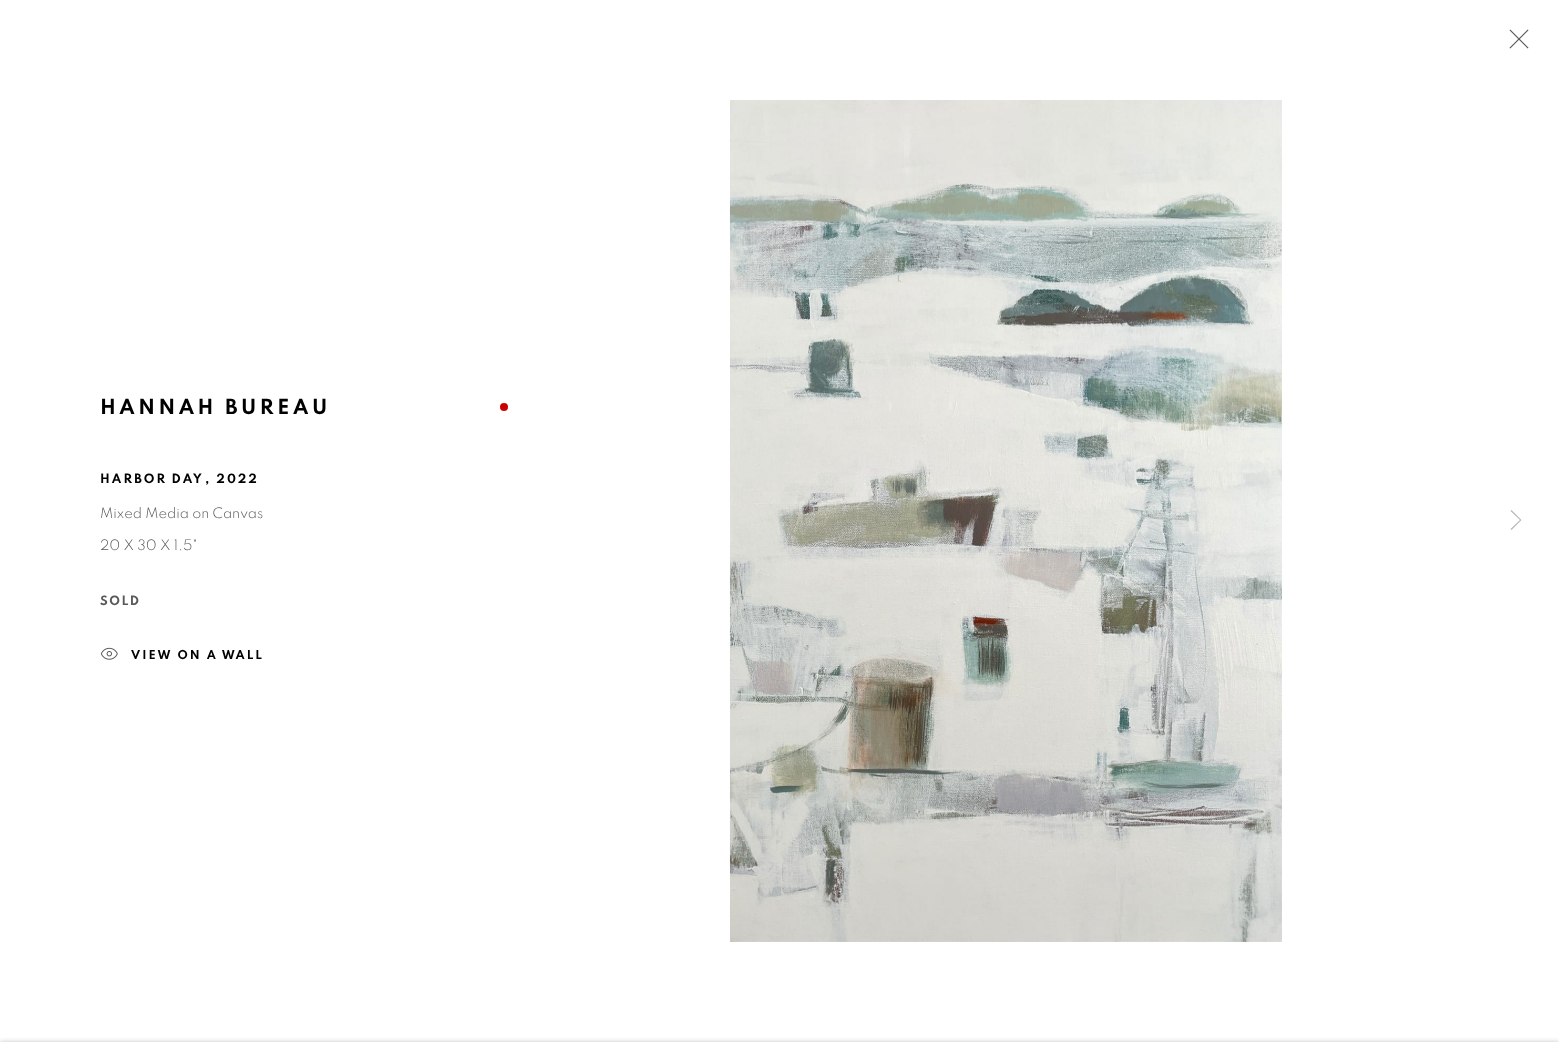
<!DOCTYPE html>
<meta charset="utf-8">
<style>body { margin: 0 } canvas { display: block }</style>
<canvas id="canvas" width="1559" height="1042"></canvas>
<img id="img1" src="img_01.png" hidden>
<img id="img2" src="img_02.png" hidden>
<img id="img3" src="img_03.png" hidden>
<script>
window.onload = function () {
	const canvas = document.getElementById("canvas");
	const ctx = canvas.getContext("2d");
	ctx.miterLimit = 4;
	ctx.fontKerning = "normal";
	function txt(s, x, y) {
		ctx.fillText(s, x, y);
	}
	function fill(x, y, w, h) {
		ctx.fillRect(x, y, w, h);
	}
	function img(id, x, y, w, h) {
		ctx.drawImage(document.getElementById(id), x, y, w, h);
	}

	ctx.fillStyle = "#FFFFFF";
	fill(0, 0, 1559, 1042);
	img("img1", 1509, 29, 20, 20);
	ctx.fillStyle = "#CC0000";
	ctx.beginPath();
	ctx.arc(504, 407, 4, 0, Math.PI * 2);
	ctx.fill();
	img("img2", 100, 647, 18, 13);
	img("img3", 729, 100, 553, 842);
	ctx.fillStyle = "#B9B9B9";
	ctx.beginPath();
	ctx.moveTo(1521.5, 520);
	ctx.lineTo(1511.5, 510);
	ctx.lineTo(1510.5, 511);
	ctx.lineTo(1520, 520);
	ctx.lineTo(1510.5, 529);
	ctx.lineTo(1511.5, 530);
	ctx.closePath();
	ctx.fill();
	ctx.fillStyle = "rgba(0, 0, 0, 0.23)";
	ctx.filter = "blur(2.5px)";
	ctx.beginPath();
	ctx.rect(0, 1042, 1559, 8);
	ctx.fill();
	ctx.filter = "none";
	ctx.letterSpacing = "3.5px";
	ctx.font = "bold 21.5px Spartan";
	ctx.fillStyle = "#010101";
	txt("HANNAH BUREAU", 100, 414);
	ctx.letterSpacing = "2.1px";
	ctx.wordSpacing = "-1px";
	ctx.font = "bold 13.25px Spartan";
	txt("HARBOR DAY", 100, 483);
	ctx.wordSpacing = "0px";
	txt(", 2022", 205, 483);
	ctx.letterSpacing = "0px";
	ctx.font = "300 14.9px Spartan";
	ctx.fillStyle = "#585858";
	txt("Mixed Media on Canvas", 100, 518);
	txt("20 X 30 X 1.5\"", 100, 550);
	ctx.letterSpacing = "1.5px";
	ctx.font = "bold 13.25px Spartan";
	txt("SOLD", 100, 605);
	ctx.letterSpacing = "2px";
	ctx.font = "bold 12.75px Spartan";
	ctx.fillStyle = "#010101";
	txt("VIEW ON A WALL", 131, 659);
};
</script>
